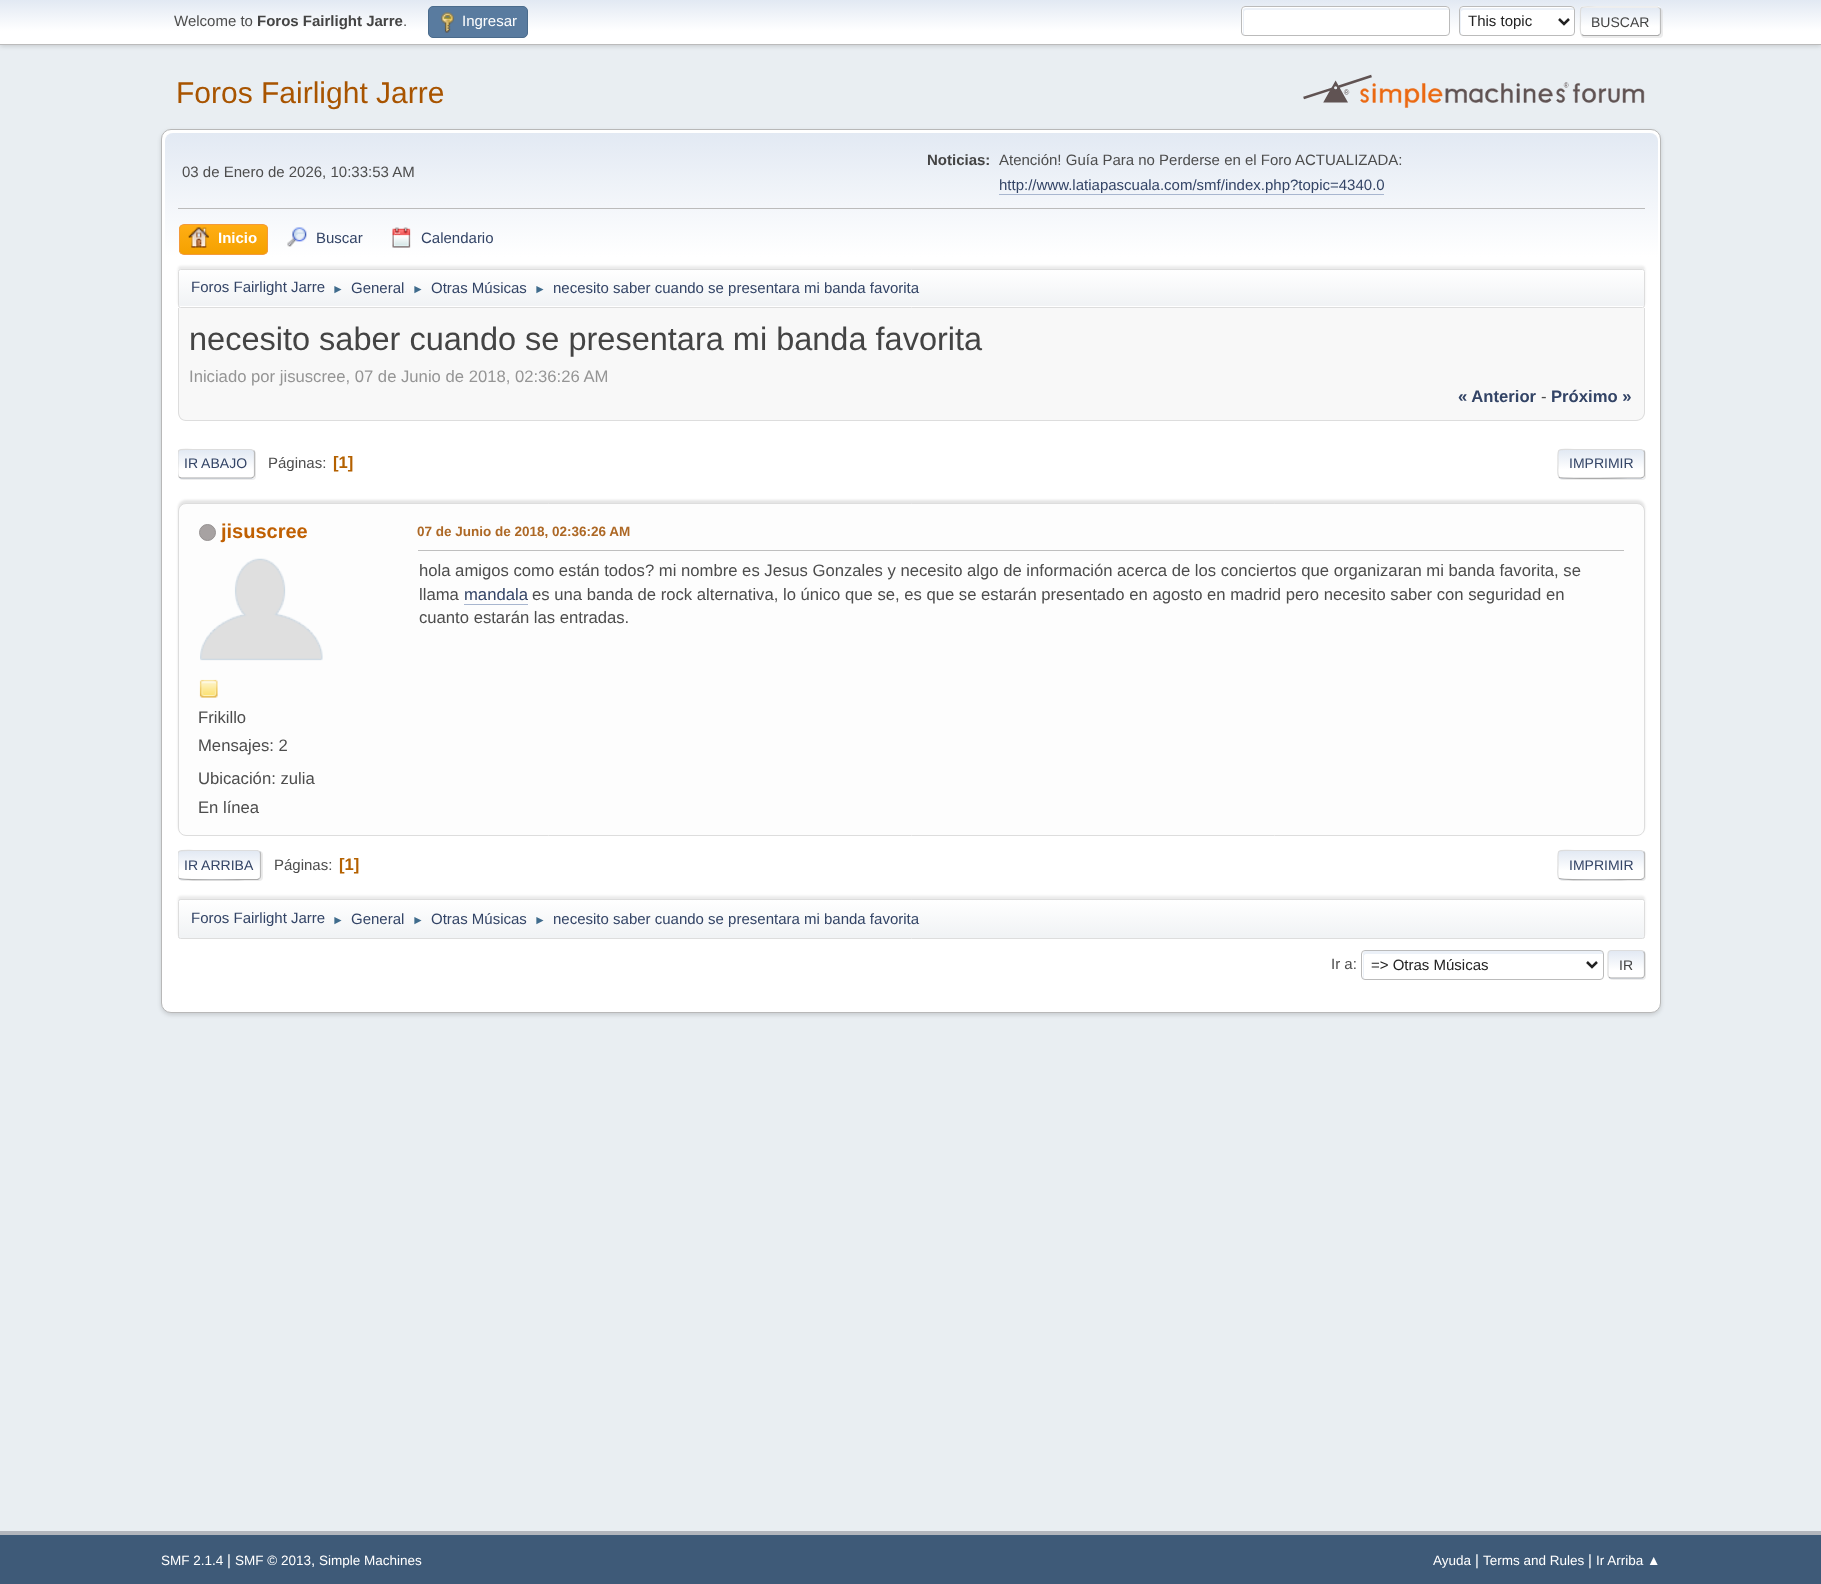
<!DOCTYPE html>
<meta charset="utf-8">
<style>body { margin: 0 } canvas { display: block }</style>
<canvas id="canvas" width="1821" height="1584"></canvas>
<img id="img1" src="img_01.png" hidden>
<img id="img2" src="img_02.png" hidden>
<img id="img3" src="img_03.png" hidden>
<img id="img4" src="img_04.png" hidden>
<img id="img5" src="img_05.png" hidden>
<img id="img6" src="img_06.png" hidden>
<img id="img7" src="img_07.png" hidden>
<script>
window.onload = function () {
	const canvas = document.getElementById("canvas");
	const ctx = canvas.getContext("2d");
	ctx.miterLimit = 4;
	ctx.fontKerning = "normal";
	function txt(s, x, y) {
		ctx.fillText(s, x, y);
	}
	function fill(x, y, w, h) {
		ctx.fillRect(x, y, w, h);
	}
	function round(x, y, w, h, r) {
		ctx.beginPath();
		ctx.roundRect(x, y, w, h, r);
		ctx.fill();
	}
	function img(id, x, y, w, h) {
		ctx.drawImage(document.getElementById(id), x, y, w, h);
	}
	let gradient;

	ctx.fillStyle = "#E9EEF2";
	fill(0, 0, 1821, 1584);
	ctx.fillStyle = "rgba(0, 0, 0, 0.16)";
	ctx.filter = "blur(2.5px)";
	ctx.beginPath();
	ctx.rect(0, 1, 1821, 45);
	ctx.fill();
	ctx.filter = "none";
	gradient = ctx.createLinearGradient(911, 0, 911, 44);
	gradient.addColorStop(0, "#E2E9F3");
	gradient.addColorStop(0.7, "#FFFFFF");
	ctx.fillStyle = gradient;
	fill(0, 0, 1821, 44);
	ctx.fillStyle = "#BBBBBB";
	fill(0, 44, 1821, 1);
	ctx.fillStyle = "#597B9F";
	ctx.beginPath();
	ctx.roundRect(428.5, 6.5, 99, 31, 4.5);
	ctx.fill();
	ctx.strokeStyle = "#4A6B8C";
	ctx.stroke();
	img("img1", 441, 12, 13, 21);
	ctx.fillStyle = "#FFFFFF";
	round(1241, 6, 209, 30, 4);
	ctx.fillStyle = "#ECF1F8";
	ctx.beginPath();
	ctx.moveTo(1246, 10);
	ctx.lineTo(1449, 10);
	ctx.bezierCurveTo(1449, 9, 1448, 8, 1446, 8);
	ctx.lineTo(1246, 8);
	ctx.bezierCurveTo(1244, 8, 1243, 9, 1243, 10);
	ctx.lineTo(1243, 32);
	ctx.bezierCurveTo(1243, 33, 1243, 34, 1244, 35);
	ctx.lineTo(1244, 12);
	ctx.bezierCurveTo(1244, 11, 1245, 10, 1246, 10);
	ctx.closePath();
	ctx.fill();
	ctx.beginPath();
	ctx.roundRect(1241.5, 6.5, 208, 29, 3.5);
	ctx.strokeStyle = "#BBBBBB";
	ctx.stroke();
	ctx.fillStyle = "#FFFFFF";
	round(1459, 6, 116, 30, 4);
	ctx.fillStyle = "#ECF1F8";
	ctx.beginPath();
	ctx.moveTo(1464, 10);
	ctx.lineTo(1572, 10);
	ctx.lineTo(1574, 10);
	ctx.bezierCurveTo(1574, 9, 1573, 8, 1572, 8);
	ctx.lineTo(1462, 8);
	ctx.bezierCurveTo(1461, 8, 1460, 9, 1460, 10);
	ctx.lineTo(1460, 32);
	ctx.bezierCurveTo(1460, 33, 1460, 34, 1461, 35);
	ctx.lineTo(1461, 12);
	ctx.bezierCurveTo(1461, 11, 1462, 10, 1464, 10);
	ctx.closePath();
	ctx.fill();
	ctx.beginPath();
	ctx.roundRect(1459.5, 6.5, 115, 29, 3.5);
	ctx.stroke();
	ctx.beginPath();
	ctx.moveTo(1559, 19);
	ctx.lineTo(1564, 24);
	ctx.lineTo(1569, 19);
	ctx.strokeStyle = "#222222";
	ctx.lineWidth = 2.5;
	ctx.stroke();
	ctx.fillStyle = "rgba(221, 221, 221, 0.57)";
	ctx.filter = "blur(0.5px)";
	ctx.beginPath();
	ctx.roundRect(1581, 8, 82, 30, 4);
	ctx.fill();
	ctx.filter = "none";
	ctx.save();
	ctx.beginPath();
	ctx.roundRect(1580, 6, 81, 30, 4);
	ctx.clip();
	gradient = ctx.createLinearGradient(1621, -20, 1621, 7.5);
	gradient.addColorStop(0, "#E2E9F3");
	gradient.addColorStop(0.7, "#FFFFFF");
	ctx.fillStyle = gradient;
	fill(1580, 6, 81, 2);
	gradient = ctx.createLinearGradient(1621, 7.5, 1621, 35);
	gradient.addColorStop(0, "#E2E9F3");
	gradient.addColorStop(0.7, "#FFFFFF");
	ctx.fillStyle = gradient;
	fill(1580, 8, 81, 27);
	ctx.restore();
	ctx.beginPath();
	ctx.moveTo(1659.5, 8);
	ctx.bezierCurveTo(1660.5, 8.5, 1660.5, 9, 1660.5, 10);
	ctx.lineTo(1660.5, 32.5);
	ctx.bezierCurveTo(1660.5, 33.5, 1660.5, 34, 1659.5, 34.5);
	ctx.strokeStyle = "#BBBBBB";
	ctx.lineWidth = 1.2;
	ctx.stroke();
	ctx.beginPath();
	ctx.moveTo(1659.5, 34.5);
	ctx.lineTo(1658, 35.5);
	ctx.lineTo(1583.5, 35.5);
	ctx.lineTo(1581.5, 34.5);
	ctx.strokeStyle = "#AAAAAA";
	ctx.stroke();
	ctx.beginPath();
	ctx.moveTo(1581.5, 34.5);
	ctx.bezierCurveTo(1579.5, 32.5, 1580.5, 24, 1580.5, 21);
	ctx.bezierCurveTo(1580.5, 4, 1578, 7, 1596, 7);
	ctx.lineTo(1657.5, 7);
	ctx.lineTo(1659.5, 8);
	ctx.strokeStyle = "#DDDDDD";
	ctx.stroke();
	img("img2", 1303, 74, 342, 34);
	ctx.fillStyle = "rgba(0, 0, 0, 0.14)";
	ctx.filter = "blur(2px)";
	ctx.beginPath();
	ctx.roundRect(161, 131, 1500, 884, 10);
	ctx.fill();
	ctx.filter = "none";
	ctx.fillStyle = "#FFFFFF";
	ctx.beginPath();
	ctx.roundRect(161.5, 129.5, 1499, 883, 9.5);
	ctx.fill();
	ctx.strokeStyle = "#B8B8B8";
	ctx.lineWidth = 1;
	ctx.stroke();
	gradient = ctx.createLinearGradient(911, 132, 911, 310);
	gradient.addColorStop(0, "#E2E9F3");
	gradient.addColorStop(0.7, "#FFFFFF");
	ctx.fillStyle = gradient;
	ctx.beginPath();
	ctx.roundRect(165, 133, 1493, 177, [8, 8, 0, 0]);
	ctx.fill();
	ctx.fillStyle = "#BBBBBB";
	fill(178, 208, 1467, 1);
	ctx.fillStyle = "#A8B6CF";
	fill(999, 194, 385, 1);
	ctx.save();
	ctx.beginPath();
	ctx.roundRect(179, 224, 89, 31, 5);
	ctx.clip();
	gradient = ctx.createLinearGradient(223, 225, 223, 254);
	gradient.addColorStop(0, "#FFAE14");
	gradient.addColorStop(1, "#F5A100");
	ctx.fillStyle = gradient;
	fill(179, 225, 89, 29);
	ctx.restore();
	ctx.beginPath();
	ctx.roundRect(179.5, 224.5, 88, 30, 4.5);
	ctx.strokeStyle = "#F49A3A";
	ctx.stroke();
	img("img3", 188, 227, 21, 21);
	img("img4", 287, 227, 20, 20);
	img("img5", 392, 227, 19, 21);
	ctx.fillStyle = "rgba(0, 0, 0, 0.08)";
	ctx.filter = "blur(1px)";
	ctx.beginPath();
	ctx.roundRect(178, 266, 1467, 39, 2.5);
	ctx.fill();
	ctx.filter = "none";
	ctx.fillStyle = "#FFFFFF";
	round(178, 269, 1467, 39, 2.5);
	gradient = ctx.createLinearGradient(911, 270, 911, 306);
	gradient.addColorStop(0, "#FFFFFF");
	gradient.addColorStop(0.95, "#F1F3F5");
	ctx.fillStyle = gradient;
	fill(178, 270, 1467, 36);
	ctx.beginPath();
	ctx.roundRect(178.5, 269.5, 1466, 38, 2);
	ctx.strokeStyle = "#DDDDDD";
	ctx.stroke();
	ctx.fillStyle = "#F8F8F8";
	ctx.beginPath();
	ctx.roundRect(178, 308, 1467, 113, [0, 0, 9, 9]);
	ctx.fill();
	ctx.fillStyle = "#DDDDDD";
	ctx.beginPath();
	ctx.moveTo(178, 308);
	ctx.lineTo(1645, 308);
	ctx.lineTo(1645, 412);
	ctx.bezierCurveTo(1645, 417, 1641, 421, 1636, 421);
	ctx.lineTo(186, 421);
	ctx.bezierCurveTo(181, 421, 178, 417, 178, 412);
	ctx.closePath();
	ctx.moveTo(179, 308);
	ctx.lineTo(1644, 308);
	ctx.lineTo(1644, 412);
	ctx.bezierCurveTo(1644, 417, 1640, 420, 1636, 420);
	ctx.lineTo(186, 420);
	ctx.bezierCurveTo(182, 420, 179, 417, 179, 412);
	ctx.closePath();
	ctx.fill("evenodd");
	ctx.fillStyle = "rgba(221, 221, 221, 0.57)";
	ctx.filter = "blur(0.5px)";
	ctx.beginPath();
	ctx.roundRect(179, 450, 77, 30, 4);
	ctx.fill();
	ctx.filter = "none";
	ctx.fillStyle = "#FFFFFF";
	round(178, 449, 77, 30, 4);
	ctx.save();
	ctx.beginPath();
	ctx.roundRect(178, 449, 77, 30, 4);
	ctx.clip();
	gradient = ctx.createLinearGradient(216, 450, 216, 478);
	gradient.addColorStop(0, "#E2E9F3");
	gradient.addColorStop(0.7, "#FFFFFF");
	ctx.fillStyle = gradient;
	fill(178, 450, 77, 28);
	gradient = ctx.createLinearGradient(216, 478, 216, 505);
	gradient.addColorStop(0, "#E2E9F3");
	gradient.addColorStop(0.7, "#FFFFFF");
	ctx.fillStyle = gradient;
	fill(178, 478, 77, 1);
	ctx.restore();
	ctx.beginPath();
	ctx.moveTo(253.5, 450.5);
	ctx.bezierCurveTo(254, 451, 254.5, 451.5, 254.5, 452.5);
	ctx.lineTo(254.5, 475);
	ctx.bezierCurveTo(254.5, 476, 254, 476.5, 253.5, 477);
	ctx.strokeStyle = "#BBBBBB";
	ctx.lineWidth = 1.2;
	ctx.stroke();
	ctx.beginPath();
	ctx.moveTo(253.5, 477);
	ctx.lineTo(251.5, 478);
	ctx.lineTo(181, 478);
	ctx.lineTo(179, 477);
	ctx.strokeStyle = "#AAAAAA";
	ctx.stroke();
	ctx.save();
	ctx.beginPath();
	ctx.rect(178, 440, 1467, 48);
	ctx.clip();
	ctx.beginPath();
	ctx.moveTo(179, 477);
	ctx.bezierCurveTo(177, 475, 178, 466.5, 178, 464);
	ctx.bezierCurveTo(178, 447, 175.5, 449.5, 193, 449.5);
	ctx.lineTo(251, 449.5);
	ctx.lineTo(253.5, 450.5);
	ctx.strokeStyle = "#DDDDDD";
	ctx.stroke();
	ctx.restore();
	ctx.save();
	ctx.beginPath();
	ctx.moveTo(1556, 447);
	ctx.lineTo(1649, 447);
	ctx.lineTo(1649, 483);
	ctx.lineTo(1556, 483);
	ctx.closePath();
	ctx.moveTo(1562, 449);
	ctx.lineTo(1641, 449);
	ctx.bezierCurveTo(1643, 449, 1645, 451, 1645, 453);
	ctx.lineTo(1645, 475);
	ctx.bezierCurveTo(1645, 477, 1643, 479, 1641, 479);
	ctx.lineTo(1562, 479);
	ctx.bezierCurveTo(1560, 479, 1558, 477, 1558, 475);
	ctx.lineTo(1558, 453);
	ctx.bezierCurveTo(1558, 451, 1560, 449, 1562, 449);
	ctx.closePath();
	ctx.clip("evenodd");
	ctx.fillStyle = "rgba(221, 221, 221, 0.57)";
	ctx.filter = "blur(0.5px)";
	ctx.beginPath();
	ctx.roundRect(1559, 450, 87, 30, 4);
	ctx.fill();
	ctx.filter = "none";
	ctx.restore();
	round(1558, 449, 87, 30, 4);
	ctx.save();
	ctx.beginPath();
	ctx.roundRect(1558, 449, 87, 30, 4);
	ctx.clip();
	gradient = ctx.createLinearGradient(1601, 450, 1601, 478);
	gradient.addColorStop(0, "#E2E9F3");
	gradient.addColorStop(0.7, "#FFFFFF");
	ctx.fillStyle = gradient;
	fill(1558, 450, 87, 28);
	gradient = ctx.createLinearGradient(1601, 478, 1601, 505);
	gradient.addColorStop(0, "#E2E9F3");
	gradient.addColorStop(0.7, "#FFFFFF");
	ctx.fillStyle = gradient;
	fill(1558, 478, 87, 1);
	ctx.restore();
	ctx.save();
	ctx.beginPath();
	ctx.rect(178, 440, 1467, 48);
	ctx.clip();
	ctx.beginPath();
	ctx.moveTo(1643.5, 450.5);
	ctx.bezierCurveTo(1644, 451, 1644.5, 451.5, 1644.5, 452.5);
	ctx.lineTo(1644.5, 475);
	ctx.bezierCurveTo(1644.5, 476, 1644, 476.5, 1643.5, 477);
	ctx.strokeStyle = "#BBBBBB";
	ctx.stroke();
	ctx.restore();
	ctx.beginPath();
	ctx.moveTo(1643.5, 477);
	ctx.lineTo(1641, 478);
	ctx.lineTo(1628, 478);
	ctx.bezierCurveTo(1620.5, 478, 1561.5, 479, 1559.5, 477.5);
	ctx.lineTo(1559, 477);
	ctx.stroke();
	ctx.beginPath();
	ctx.moveTo(1559, 477);
	ctx.bezierCurveTo(1557, 475, 1558, 466.5, 1558, 464);
	ctx.bezierCurveTo(1558, 446.5, 1555.5, 449.5, 1574.5, 449.5);
	ctx.lineTo(1641, 449.5);
	ctx.lineTo(1643.5, 450.5);
	ctx.strokeStyle = "#DDDDDD";
	ctx.stroke();
	ctx.fillStyle = "rgba(0, 0, 0, 0.1)";
	ctx.filter = "blur(1px)";
	ctx.beginPath();
	ctx.roundRect(178, 500, 1467, 334, 8);
	ctx.fill();
	ctx.filter = "none";
	ctx.fillStyle = "#FDFDFD";
	ctx.beginPath();
	ctx.roundRect(178.5, 503.5, 1466, 332, 7.5);
	ctx.fill();
	ctx.lineWidth = 1;
	ctx.stroke();
	ctx.fillStyle = "#A7A2A2";
	ctx.beginPath();
	ctx.arc(207.5, 532.5, 8, 0, Math.PI * 2);
	ctx.fill();
	ctx.strokeStyle = "#969292";
	ctx.stroke();
	img("img6", 200, 558, 123, 103);
	img("img7", 199, 679, 19, 19);
	ctx.fillStyle = "#BFBFBF";
	fill(418, 550, 1206, 1);
	ctx.fillStyle = "#A8B6CF";
	fill(464, 604, 64, 1);
	ctx.fillStyle = "rgba(221, 221, 221, 0.57)";
	ctx.filter = "blur(0.5px)";
	ctx.beginPath();
	ctx.roundRect(179, 851, 84, 30, 4);
	ctx.fill();
	ctx.filter = "none";
	ctx.save();
	ctx.beginPath();
	ctx.roundRect(178, 850, 83, 30, 4);
	ctx.clip();
	gradient = ctx.createLinearGradient(219, 851, 219, 879);
	gradient.addColorStop(0, "#E2E9F3");
	gradient.addColorStop(0.7, "#FFFFFF");
	ctx.fillStyle = gradient;
	fill(178, 851, 83, 28);
	gradient = ctx.createLinearGradient(219, 879, 219, 906);
	gradient.addColorStop(0, "#E2E9F3");
	gradient.addColorStop(0.7, "#FFFFFF");
	ctx.fillStyle = gradient;
	fill(178, 879, 83, 1);
	ctx.restore();
	ctx.beginPath();
	ctx.moveTo(259.5, 851.5);
	ctx.bezierCurveTo(260.5, 852, 260.5, 853, 260.5, 854);
	ctx.lineTo(260.5, 876);
	ctx.bezierCurveTo(260.5, 877, 260.5, 878, 259.5, 878.5);
	ctx.strokeStyle = "#BBBBBB";
	ctx.lineWidth = 1.2;
	ctx.stroke();
	ctx.beginPath();
	ctx.moveTo(259.5, 878.5);
	ctx.lineTo(257.5, 879.5);
	ctx.lineTo(245, 879.5);
	ctx.bezierCurveTo(237.5, 879.5, 181.5, 880.5, 179.5, 878.5);
	ctx.lineTo(179, 878.5);
	ctx.strokeStyle = "#AAAAAA";
	ctx.stroke();
	ctx.save();
	ctx.beginPath();
	ctx.rect(178, 841, 1467, 48);
	ctx.clip();
	ctx.beginPath();
	ctx.moveTo(179, 878.5);
	ctx.bezierCurveTo(177, 876, 178, 871.5, 178, 869);
	ctx.bezierCurveTo(178, 848.5, 174, 850.5, 194, 850.5);
	ctx.lineTo(257.5, 850.5);
	ctx.lineTo(259.5, 851.5);
	ctx.strokeStyle = "#DDDDDD";
	ctx.stroke();
	ctx.restore();
	ctx.filter = "blur(0.5px)";
	ctx.beginPath();
	ctx.roundRect(1559, 851, 87, 30, 4);
	ctx.fill();
	ctx.filter = "none";
	ctx.fillStyle = "#FFFFFF";
	round(1558, 850, 87, 30, 4);
	ctx.save();
	ctx.beginPath();
	ctx.roundRect(1558, 850, 87, 30, 4);
	ctx.clip();
	gradient = ctx.createLinearGradient(1601, 851, 1601, 879);
	gradient.addColorStop(0, "#E2E9F3");
	gradient.addColorStop(0.7, "#FFFFFF");
	ctx.fillStyle = gradient;
	fill(1558, 851, 87, 28);
	gradient = ctx.createLinearGradient(1601, 879, 1601, 906);
	gradient.addColorStop(0, "#E2E9F3");
	gradient.addColorStop(0.7, "#FFFFFF");
	ctx.fillStyle = gradient;
	fill(1558, 879, 87, 1);
	ctx.restore();
	ctx.save();
	ctx.beginPath();
	ctx.rect(178, 841, 1467, 48);
	ctx.clip();
	ctx.beginPath();
	ctx.moveTo(1643.5, 851.5);
	ctx.bezierCurveTo(1644, 852, 1644.5, 853, 1644.5, 854);
	ctx.lineTo(1644.5, 876);
	ctx.bezierCurveTo(1644.5, 877, 1644, 878, 1643.5, 878.5);
	ctx.strokeStyle = "#BBBBBB";
	ctx.stroke();
	ctx.restore();
	ctx.beginPath();
	ctx.moveTo(1643.5, 878.5);
	ctx.lineTo(1641, 879.5);
	ctx.lineTo(1628, 879.5);
	ctx.bezierCurveTo(1620.5, 879.5, 1561.5, 880.5, 1559.5, 878.5);
	ctx.lineTo(1559, 878.5);
	ctx.stroke();
	ctx.beginPath();
	ctx.moveTo(1559, 878.5);
	ctx.bezierCurveTo(1557, 876.5, 1558, 867.5, 1558, 865);
	ctx.bezierCurveTo(1558, 847.5, 1555.5, 850.5, 1574.5, 850.5);
	ctx.lineTo(1641, 850.5);
	ctx.lineTo(1643.5, 851.5);
	ctx.strokeStyle = "#DDDDDD";
	ctx.stroke();
	ctx.fillStyle = "rgba(0, 0, 0, 0.08)";
	ctx.filter = "blur(1px)";
	ctx.beginPath();
	ctx.roundRect(178, 896, 1467, 40, 2.5);
	ctx.fill();
	ctx.filter = "none";
	ctx.save();
	ctx.beginPath();
	ctx.roundRect(178, 899, 1467, 40, 2.5);
	ctx.clip();
	gradient = ctx.createLinearGradient(911, 900, 911, 938);
	gradient.addColorStop(0, "#FFFFFF");
	gradient.addColorStop(0.95, "#F1F3F5");
	ctx.fillStyle = gradient;
	fill(178, 900, 1467, 38);
	ctx.restore();
	ctx.beginPath();
	ctx.roundRect(178.5, 899.5, 1466, 39, 2);
	ctx.lineWidth = 1;
	ctx.stroke();
	ctx.fillStyle = "#ECF1F8";
	ctx.beginPath();
	ctx.moveTo(1366, 954);
	ctx.lineTo(1601, 954);
	ctx.lineTo(1603, 954);
	ctx.bezierCurveTo(1603, 952, 1602, 951, 1600, 951);
	ctx.lineTo(1366, 951);
	ctx.bezierCurveTo(1364, 951, 1363, 952, 1363, 954);
	ctx.lineTo(1363, 976);
	ctx.bezierCurveTo(1363, 977, 1363, 978, 1364, 979);
	ctx.lineTo(1364, 956);
	ctx.bezierCurveTo(1364, 955, 1365, 954, 1366, 954);
	ctx.closePath();
	ctx.fill();
	ctx.beginPath();
	ctx.roundRect(1361.5, 950.5, 242, 29, 3.5);
	ctx.strokeStyle = "#BBBBBB";
	ctx.stroke();
	ctx.beginPath();
	ctx.moveTo(1587, 962);
	ctx.lineTo(1592, 967);
	ctx.lineTo(1597, 962);
	ctx.strokeStyle = "#222222";
	ctx.lineWidth = 2.5;
	ctx.stroke();
	ctx.fillStyle = "rgba(221, 221, 221, 0.57)";
	ctx.filter = "blur(0.5px)";
	ctx.beginPath();
	ctx.roundRect(1609, 951, 37, 29, 4);
	ctx.fill();
	ctx.filter = "none";
	ctx.save();
	ctx.beginPath();
	ctx.roundRect(1608, 950, 37, 29, 4);
	ctx.clip();
	gradient = ctx.createLinearGradient(1626, 951, 1626, 978);
	gradient.addColorStop(0, "#E2E9F3");
	gradient.addColorStop(0.7, "#FFFFFF");
	ctx.fillStyle = gradient;
	fill(1608, 951, 37, 27);
	gradient = ctx.createLinearGradient(1626, 978, 1626, 1004);
	gradient.addColorStop(0, "#E2E9F3");
	gradient.addColorStop(0.7, "#FFFFFF");
	ctx.fillStyle = gradient;
	fill(1608, 978, 37, 1);
	ctx.restore();
	ctx.beginPath();
	ctx.moveTo(1643.5, 951.5);
	ctx.bezierCurveTo(1644, 952, 1644.5, 953, 1644.5, 954);
	ctx.lineTo(1644.5, 975);
	ctx.bezierCurveTo(1644.5, 976, 1644, 976.5, 1643.5, 977);
	ctx.strokeStyle = "#BBBBBB";
	ctx.lineWidth = 1.2;
	ctx.stroke();
	ctx.beginPath();
	ctx.moveTo(1643.5, 977);
	ctx.bezierCurveTo(1643, 978, 1642, 978, 1641, 978);
	ctx.lineTo(1611, 978);
	ctx.bezierCurveTo(1610.5, 978, 1609.5, 978, 1609, 977);
	ctx.strokeStyle = "#AAAAAA";
	ctx.stroke();
	ctx.beginPath();
	ctx.moveTo(1609, 977);
	ctx.bezierCurveTo(1608.5, 976.5, 1608, 976, 1608, 975);
	ctx.lineTo(1608, 954);
	ctx.bezierCurveTo(1608, 953, 1608.5, 952, 1609, 951.5);
	ctx.bezierCurveTo(1609.5, 951, 1610.5, 950.5, 1611, 950.5);
	ctx.lineTo(1641, 950.5);
	ctx.bezierCurveTo(1642, 950.5, 1643, 951, 1643.5, 951.5);
	ctx.strokeStyle = "#DDDDDD";
	ctx.stroke();
	ctx.fillStyle = "#3E5A78";
	fill(0, 1535, 1821, 49);
	ctx.fillStyle = "#B2B6BD";
	fill(0, 1531, 1821, 4);
	ctx.font = "15px Liberation Sans";
	ctx.fillStyle = "#4D4D4D";
	txt("Welcome to", 174, 26);
	ctx.font = "bold 15px Liberation Sans";
	ctx.fillStyle = "#444444";
	txt("Foros Fairlight Jarre", 257, 26);
	ctx.font = "15px Liberation Sans";
	ctx.fillStyle = "#4D4D4D";
	txt(".", 403, 26);
	ctx.fillStyle = "#FFFFFF";
	txt("Ingresar", 462, 26);
	ctx.fillStyle = "#222222";
	txt("This topic", 1468, 26);
	ctx.font = "14px Liberation Sans";
	ctx.fillStyle = "#444444";
	txt("BUSCAR", 1591, 27);
	ctx.font = "30px Liberation Sans";
	ctx.fillStyle = "#A85400";
	txt("Foros Fairlight Jarre", 176, 103);
	ctx.font = "15px Liberation Sans";
	ctx.fillStyle = "#4D4D4D";
	txt("03 de Enero de 2026, 10:33:53 AM", 182, 177);
	ctx.font = "bold 15px Liberation Sans";
	ctx.fillStyle = "#444444";
	txt("Noticias:", 927, 165);
	ctx.font = "15px Liberation Sans";
	ctx.fillStyle = "#4D4D4D";
	txt("Atención! Guía Para no Perderse en el Foro ACTUALIZADA:", 999, 165);
	ctx.fillStyle = "#334466";
	txt("http://www.latiapascuala.com/smf/index.php?topic=4340.0", 999, 190);
	ctx.font = "bold 15px Liberation Sans";
	ctx.fillStyle = "#FFFFFF";
	txt("Inicio", 218, 243);
	ctx.font = "15px Liberation Sans";
	ctx.fillStyle = "#334466";
	txt("Buscar", 316, 243);
	txt("Calendario", 421, 243);
	txt("Foros Fairlight Jarre", 191, 292);
	ctx.font = "12px Liberation Sans";
	ctx.fillStyle = "#3F6B8C";
	txt("►", 332, 293);
	ctx.font = "15px Liberation Sans";
	ctx.fillStyle = "#334466";
	txt("General", 351, 293);
	ctx.font = "12px Liberation Sans";
	ctx.fillStyle = "#3F6B8C";
	txt("►", 412, 293);
	ctx.font = "15px Liberation Sans";
	ctx.fillStyle = "#334466";
	txt("Otras Músicas", 431, 293);
	ctx.font = "12px Liberation Sans";
	ctx.fillStyle = "#3F6B8C";
	txt("►", 534, 293);
	ctx.font = "15px Liberation Sans";
	ctx.fillStyle = "#334466";
	txt("necesito saber cuando se presentara mi banda favorita", 553, 293);
	ctx.font = "32.5px Liberation Sans";
	ctx.fillStyle = "#444444";
	txt("necesito saber cuando se presentara mi banda favorita", 189, 350);
	ctx.font = "16.67px Liberation Sans";
	ctx.fillStyle = "#959595";
	txt("Iniciado por jisuscree, 07 de Junio de 2018, 02:36:26 AM", 189, 382);
	ctx.font = "bold 16.67px Liberation Sans";
	ctx.fillStyle = "#334466";
	txt("« Anterior", 1458, 402);
	ctx.font = "16.67px Liberation Sans";
	ctx.fillStyle = "#4D4D4D";
	txt("-", 1541, 402);
	ctx.font = "bold 16.67px Liberation Sans";
	ctx.fillStyle = "#334466";
	txt("Próximo »", 1551, 402);
	ctx.font = "14px Liberation Sans";
	txt("IR ABAJO", 184, 468);
	ctx.font = "15px Liberation Sans";
	ctx.fillStyle = "#4D4D4D";
	txt("Páginas:", 268, 468);
	ctx.font = "bold 16.67px Liberation Sans";
	ctx.fillStyle = "#B46100";
	txt("[1]", 333, 468);
	ctx.font = "14px Liberation Sans";
	ctx.fillStyle = "#334466";
	txt("IMPRIMIR", 1569, 468);
	ctx.font = "bold 20px Liberation Sans";
	ctx.fillStyle = "#C06002";
	txt("jisuscree", 221, 538);
	ctx.font = "16.67px Liberation Sans";
	ctx.fillStyle = "#4D4D4D";
	txt("Frikillo", 198, 723);
	txt("Mensajes: 2", 198, 751);
	txt("Ubicación: zulia", 198, 784);
	txt("En línea", 198, 813);
	ctx.font = "bold 13.5px Liberation Sans";
	ctx.fillStyle = "#AD6825";
	txt("07 de Junio de 2018, 02:36:26 AM", 417, 536);
	ctx.font = "16.67px Liberation Sans";
	ctx.fillStyle = "#4D4D4D";
	txt("hola amigos como están todos? mi nombre es Jesus Gonzales y necesito algo de información acerca de los conciertos que organizaran mi banda favorita, se", 419, 576);
	txt("llama", 419, 600);
	ctx.fillStyle = "#334466";
	txt("mandala", 464, 600);
	ctx.fillStyle = "#4D4D4D";
	txt("es una banda de rock alternativa, lo único que se, es que se estarán presentado en agosto en madrid pero necesito saber con seguridad en", 532, 600);
	txt("cuanto estarán las entradas.", 419, 623);
	ctx.font = "14px Liberation Sans";
	ctx.fillStyle = "#334466";
	txt("IR ARRIBA", 184, 870);
	ctx.font = "15px Liberation Sans";
	ctx.fillStyle = "#4D4D4D";
	txt("Páginas:", 274, 870);
	ctx.font = "bold 16.67px Liberation Sans";
	ctx.fillStyle = "#B46100";
	txt("[1]", 339, 870);
	ctx.font = "14px Liberation Sans";
	ctx.fillStyle = "#334466";
	txt("IMPRIMIR", 1569, 870);
	ctx.font = "15px Liberation Sans";
	txt("Foros Fairlight Jarre", 191, 923);
	ctx.font = "12px Liberation Sans";
	ctx.fillStyle = "#3F6B8C";
	txt("►", 332, 924);
	ctx.font = "15px Liberation Sans";
	ctx.fillStyle = "#334466";
	txt("General", 351, 924);
	ctx.font = "12px Liberation Sans";
	ctx.fillStyle = "#3F6B8C";
	txt("►", 412, 924);
	ctx.font = "15px Liberation Sans";
	ctx.fillStyle = "#334466";
	txt("Otras Músicas", 431, 924);
	ctx.font = "12px Liberation Sans";
	ctx.fillStyle = "#3F6B8C";
	txt("►", 534, 924);
	ctx.font = "15px Liberation Sans";
	ctx.fillStyle = "#334466";
	txt("necesito saber cuando se presentara mi banda favorita", 553, 924);
	ctx.fillStyle = "#4D4D4D";
	txt("Ir a:", 1331, 969);
	ctx.fillStyle = "#222222";
	txt("=> Otras Músicas", 1371, 970);
	ctx.font = "14px Liberation Sans";
	ctx.fillStyle = "#444444";
	txt("IR", 1619, 970);
	ctx.font = "13.5px Liberation Sans";
	ctx.fillStyle = "#FFFFFF";
	txt("SMF 2.1.4", 161, 1565);
	ctx.font = "15px Liberation Sans";
	txt("|", 227, 1565);
	ctx.font = "13.5px Liberation Sans";
	txt("SMF © 2013", 235, 1565);
	ctx.font = "15px Liberation Sans";
	txt(",", 311, 1565);
	ctx.font = "13.5px Liberation Sans";
	txt("Simple Machines", 319, 1565);
	txt("Ayuda", 1433, 1565);
	ctx.font = "15px Liberation Sans";
	txt("|", 1475, 1565);
	ctx.font = "13.5px Liberation Sans";
	txt("Terms and Rules", 1483, 1565);
	ctx.font = "15px Liberation Sans";
	txt("|", 1588, 1565);
	ctx.font = "13.5px Liberation Sans";
	txt("Ir Arriba ▲", 1596, 1565);
};
</script>
